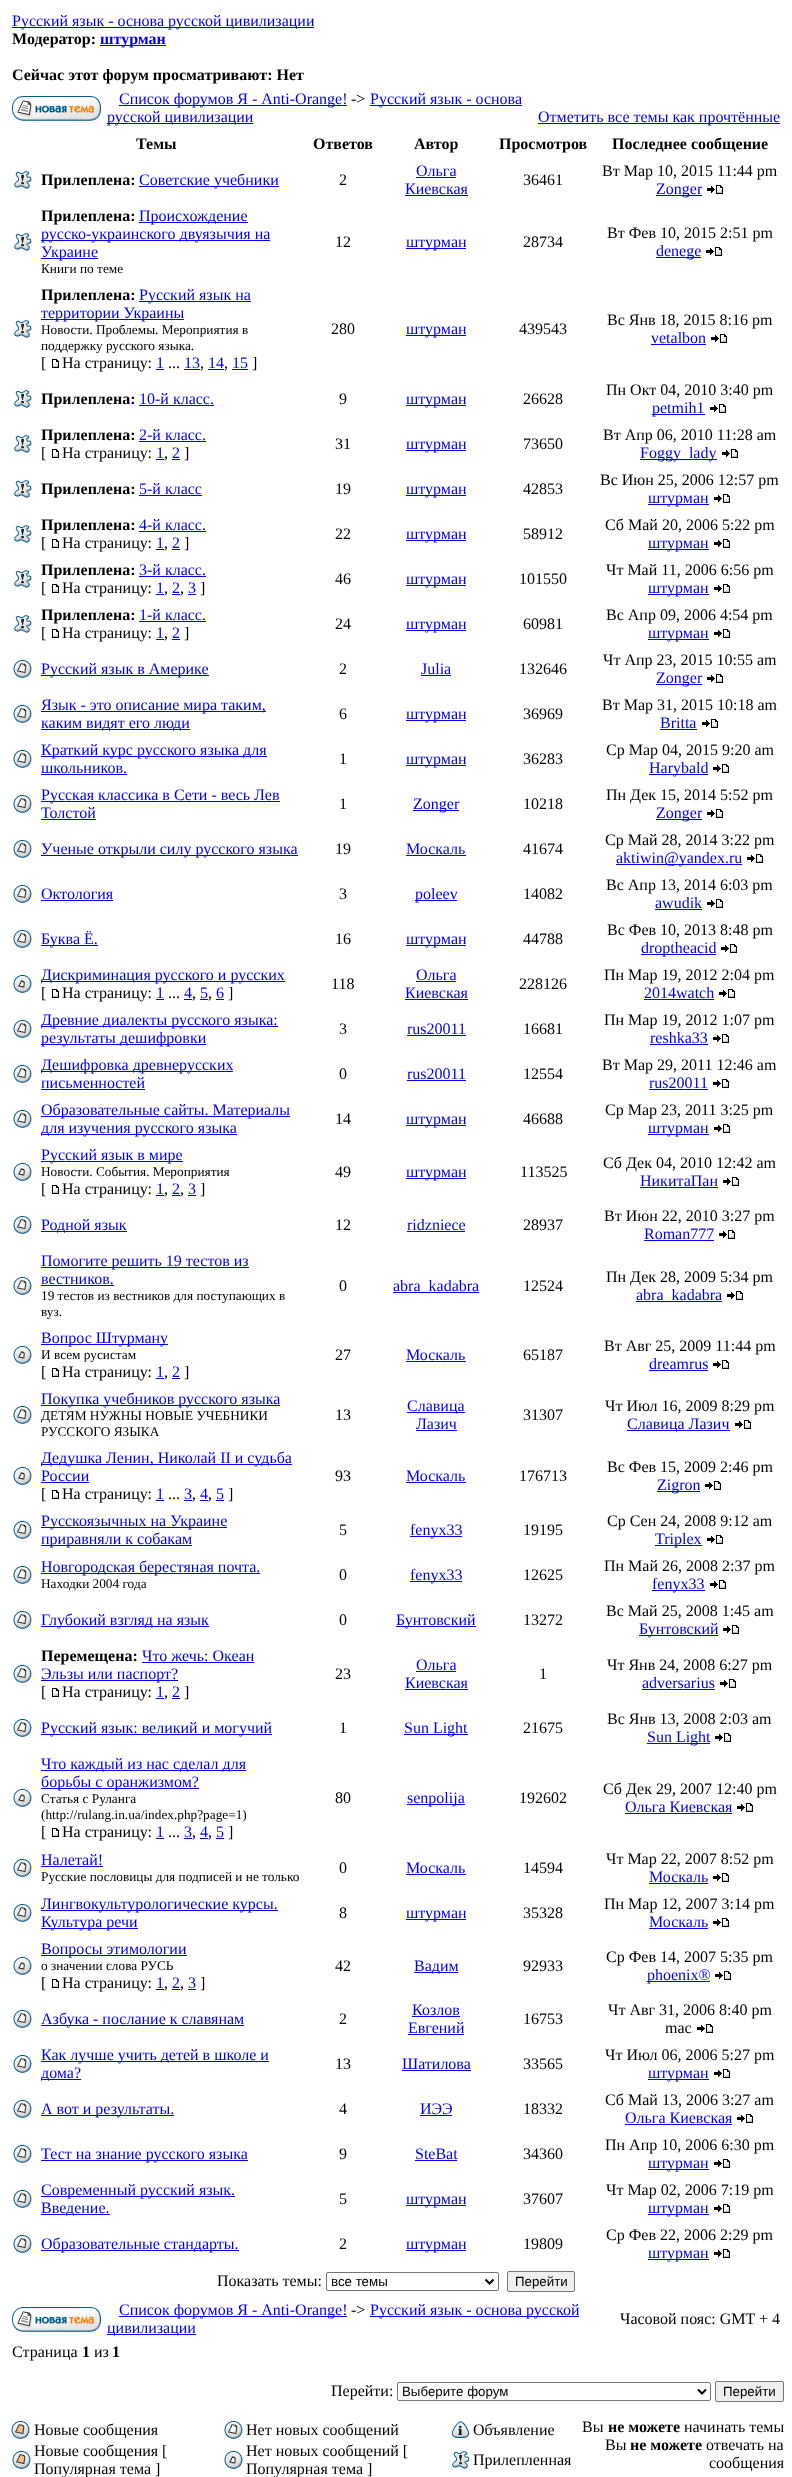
<!DOCTYPE html>
<meta charset="utf-8">
<style>body { margin: 0 } canvas { display: block }</style>
<canvas id="canvas" width="792" height="2477"></canvas>
<img id="img1" src="img_01.png" hidden>
<img id="img2" src="img_02.png" hidden>
<img id="img3" src="img_03.png" hidden>
<img id="img4" src="img_04.png" hidden>
<img id="img5" src="img_05.png" hidden>
<img id="img6" src="img_06.png" hidden>
<img id="img7" src="img_07.png" hidden>
<img id="img8" src="img_08.png" hidden>
<img id="img9" src="img_09.png" hidden>
<script>
window.onload = function () {
	const canvas = document.getElementById("canvas");
	const ctx = canvas.getContext("2d");
	ctx.miterLimit = 4;
	ctx.fontKerning = "normal";
	function txt(s, x, y) {
		ctx.fillText(s, x, y);
	}
	function fill(x, y, w, h) {
		ctx.fillRect(x, y, w, h);
	}
	function img(id, x, y, w, h) {
		ctx.drawImage(document.getElementById(id), x, y, w, h);
	}

	ctx.fillStyle = "#FFFFFF";
	fill(0, 0, 792, 2477);
	ctx.fillStyle = "#0000EE";
	fill(12, 27, 302, 1);
	fill(100, 45, 66, 1);
	img("img1", 12, 96, 89, 25);
	fill(119, 105, 228, 1);
	fill(370, 105, 152, 1);
	fill(107, 123, 146, 1);
	fill(538, 123, 242, 1);
	img("img2", 14, 171, 18, 18);
	fill(139, 186, 140, 1);
	fill(416, 177, 40, 1);
	fill(405, 195, 63, 1);
	fill(656, 195, 46, 1);
	img("img3", 707, 185, 16, 9);
	img("img2", 14, 233, 18, 18);
	fill(139, 222, 109, 1);
	fill(41, 240, 229, 1);
	fill(41, 258, 57, 1);
	fill(406, 248, 60, 1);
	fill(656, 257, 45, 1);
	img("img3", 706, 247, 16, 9);
	img("img2", 14, 320, 18, 18);
	fill(139, 301, 112, 1);
	fill(41, 319, 143, 1);
	img("img4", 52, 359, 7, 9);
	fill(156, 369, 8, 1);
	fill(184, 369, 16, 1);
	fill(208, 369, 16, 1);
	fill(232, 369, 16, 1);
	fill(406, 335, 60, 1);
	fill(651, 344, 55, 1);
	img("img3", 711, 334, 16, 9);
	img("img2", 14, 390, 18, 18);
	fill(139, 405, 75, 1);
	fill(406, 405, 60, 1);
	fill(652, 414, 53, 1);
	img("img3", 710, 404, 16, 9);
	img("img2", 14, 435, 18, 18);
	fill(139, 441, 67, 1);
	img("img4", 52, 449, 7, 9);
	fill(156, 459, 8, 1);
	fill(172, 459, 8, 1);
	fill(406, 450, 60, 1);
	fill(640, 459, 77, 1);
	img("img3", 722, 449, 16, 9);
	img("img2", 14, 480, 18, 18);
	fill(139, 495, 63, 1);
	fill(406, 495, 60, 1);
	fill(648, 504, 61, 1);
	img("img3", 714, 494, 16, 9);
	img("img2", 14, 525, 18, 18);
	fill(139, 531, 67, 1);
	img("img4", 52, 539, 7, 9);
	fill(156, 549, 8, 1);
	fill(172, 549, 8, 1);
	fill(406, 540, 60, 1);
	fill(648, 549, 61, 1);
	img("img3", 714, 539, 16, 9);
	img("img2", 14, 570, 18, 18);
	fill(139, 576, 67, 1);
	img("img4", 52, 584, 7, 9);
	fill(156, 594, 8, 1);
	fill(172, 594, 8, 1);
	fill(188, 594, 8, 1);
	fill(406, 585, 60, 1);
	fill(648, 594, 61, 1);
	img("img3", 714, 584, 16, 9);
	img("img2", 14, 615, 18, 18);
	fill(139, 621, 67, 1);
	img("img4", 52, 629, 7, 9);
	fill(156, 639, 8, 1);
	fill(172, 639, 8, 1);
	fill(406, 630, 60, 1);
	fill(648, 639, 61, 1);
	img("img3", 714, 629, 16, 9);
	img("img5", 13, 660, 19, 18);
	fill(41, 675, 168, 1);
	fill(421, 675, 30, 1);
	fill(656, 684, 46, 1);
	img("img3", 707, 674, 16, 9);
	img("img5", 13, 705, 19, 18);
	fill(41, 711, 225, 1);
	fill(41, 729, 149, 1);
	fill(406, 720, 60, 1);
	fill(660, 729, 37, 1);
	img("img3", 702, 719, 16, 9);
	img("img5", 13, 750, 19, 18);
	fill(41, 756, 226, 1);
	fill(41, 774, 86, 1);
	fill(406, 765, 60, 1);
	fill(649, 774, 59, 1);
	img("img3", 713, 764, 16, 9);
	img("img5", 13, 795, 19, 18);
	fill(41, 801, 239, 1);
	fill(41, 819, 55, 1);
	fill(413, 810, 46, 1);
	fill(656, 819, 46, 1);
	img("img3", 707, 809, 16, 9);
	img("img5", 13, 840, 19, 18);
	fill(41, 855, 257, 1);
	fill(406, 855, 60, 1);
	fill(616, 864, 126, 1);
	img("img3", 747, 854, 16, 9);
	img("img5", 13, 885, 19, 18);
	fill(41, 900, 72, 1);
	fill(415, 900, 42, 1);
	fill(655, 909, 47, 1);
	img("img3", 707, 899, 16, 9);
	img("img5", 13, 930, 19, 18);
	fill(41, 945, 57, 1);
	fill(406, 945, 60, 1);
	fill(641, 954, 75, 1);
	img("img3", 721, 944, 16, 9);
	img("img6", 13, 975, 19, 18);
	fill(41, 981, 244, 1);
	img("img4", 52, 989, 7, 9);
	fill(156, 999, 8, 1);
	fill(184, 999, 8, 1);
	fill(200, 999, 8, 1);
	fill(216, 999, 8, 1);
	fill(416, 981, 40, 1);
	fill(405, 999, 63, 1);
	fill(644, 999, 70, 1);
	img("img3", 719, 989, 16, 9);
	img("img5", 13, 1020, 19, 18);
	fill(41, 1026, 237, 1);
	fill(41, 1044, 165, 1);
	fill(407, 1035, 59, 1);
	fill(650, 1044, 58, 1);
	img("img3", 713, 1034, 16, 9);
	img("img5", 13, 1065, 19, 18);
	fill(41, 1071, 192, 1);
	fill(41, 1089, 104, 1);
	fill(407, 1080, 59, 1);
	fill(649, 1089, 59, 1);
	img("img3", 713, 1079, 16, 9);
	img("img5", 13, 1110, 19, 18);
	fill(41, 1116, 249, 1);
	fill(41, 1134, 196, 1);
	fill(406, 1125, 60, 1);
	fill(648, 1134, 61, 1);
	img("img3", 714, 1124, 16, 9);
	img("img6", 13, 1163, 19, 18);
	fill(41, 1161, 142, 1);
	img("img4", 52, 1185, 7, 9);
	fill(156, 1195, 8, 1);
	fill(172, 1195, 8, 1);
	fill(188, 1195, 8, 1);
	fill(406, 1178, 60, 1);
	fill(640, 1187, 78, 1);
	img("img3", 723, 1177, 16, 9);
	img("img5", 13, 1216, 19, 18);
	fill(41, 1231, 86, 1);
	fill(407, 1231, 58, 1);
	fill(644, 1240, 70, 1);
	img("img3", 719, 1230, 16, 9);
	img("img5", 13, 1277, 19, 18);
	fill(41, 1267, 208, 1);
	fill(41, 1285, 73, 1);
	fill(393, 1292, 86, 1);
	fill(636, 1301, 86, 1);
	img("img3", 727, 1291, 16, 9);
	img("img6", 13, 1346, 19, 18);
	fill(41, 1344, 127, 1);
	img("img4", 52, 1368, 7, 9);
	fill(156, 1378, 8, 1);
	fill(172, 1378, 8, 1);
	fill(406, 1361, 60, 1);
	fill(649, 1370, 59, 1);
	img("img3", 713, 1360, 16, 9);
	img("img5", 13, 1406, 19, 18);
	fill(41, 1405, 239, 1);
	fill(407, 1412, 58, 1);
	fill(416, 1430, 41, 1);
	fill(627, 1430, 103, 1);
	img("img3", 735, 1420, 16, 9);
	img("img6", 13, 1467, 19, 18);
	fill(41, 1464, 251, 1);
	fill(41, 1482, 48, 1);
	img("img4", 52, 1490, 7, 9);
	fill(156, 1500, 8, 1);
	fill(184, 1500, 8, 1);
	fill(200, 1500, 8, 1);
	fill(216, 1500, 8, 1);
	fill(406, 1482, 60, 1);
	fill(657, 1491, 43, 1);
	img("img3", 705, 1481, 16, 9);
	img("img5", 13, 1521, 19, 18);
	fill(41, 1527, 186, 1);
	fill(41, 1545, 151, 1);
	fill(410, 1536, 52, 1);
	fill(655, 1545, 47, 1);
	img("img3", 707, 1535, 16, 9);
	img("img5", 13, 1566, 19, 18);
	fill(41, 1573, 219, 1);
	fill(410, 1581, 52, 1);
	fill(652, 1590, 53, 1);
	img("img3", 710, 1580, 16, 9);
	img("img5", 13, 1611, 19, 18);
	fill(41, 1626, 168, 1);
	fill(396, 1626, 80, 1);
	fill(639, 1635, 79, 1);
	img("img3", 723, 1625, 16, 9);
	img("img5", 13, 1665, 19, 18);
	fill(142, 1662, 112, 1);
	fill(41, 1680, 137, 1);
	img("img4", 52, 1688, 7, 9);
	fill(156, 1698, 8, 1);
	fill(172, 1698, 8, 1);
	fill(416, 1671, 40, 1);
	fill(405, 1689, 63, 1);
	fill(642, 1689, 73, 1);
	img("img3", 720, 1679, 16, 9);
	img("img5", 13, 1719, 19, 18);
	fill(41, 1734, 231, 1);
	fill(404, 1734, 64, 1);
	fill(647, 1743, 63, 1);
	img("img3", 715, 1733, 16, 9);
	img("img6", 13, 1789, 19, 18);
	fill(41, 1770, 205, 1);
	fill(41, 1788, 158, 1);
	img("img4", 52, 1828, 7, 9);
	fill(156, 1838, 8, 1);
	fill(184, 1838, 8, 1);
	fill(200, 1838, 8, 1);
	fill(216, 1838, 8, 1);
	fill(407, 1804, 58, 1);
	fill(625, 1813, 107, 1);
	img("img3", 737, 1803, 16, 9);
	img("img5", 13, 1859, 19, 18);
	fill(41, 1866, 62, 1);
	fill(406, 1874, 60, 1);
	fill(649, 1883, 59, 1);
	img("img3", 713, 1873, 16, 9);
	img("img5", 13, 1904, 19, 18);
	fill(41, 1910, 237, 1);
	fill(41, 1928, 97, 1);
	fill(406, 1919, 60, 1);
	fill(649, 1928, 59, 1);
	img("img3", 713, 1918, 16, 9);
	img("img6", 13, 1957, 19, 18);
	fill(41, 1955, 146, 1);
	img("img4", 52, 1979, 7, 9);
	fill(156, 1989, 8, 1);
	fill(172, 1989, 8, 1);
	fill(188, 1989, 8, 1);
	fill(414, 1972, 44, 1);
	fill(647, 1981, 63, 1);
	img("img3", 715, 1971, 16, 9);
	img("img5", 13, 2010, 19, 18);
	fill(41, 2025, 203, 1);
	fill(412, 2016, 48, 1);
	fill(408, 2034, 56, 1);
	img("img3", 697, 2024, 16, 9);
	img("img5", 13, 2055, 19, 18);
	fill(41, 2061, 228, 1);
	fill(41, 2079, 40, 1);
	fill(402, 2070, 69, 1);
	fill(648, 2079, 61, 1);
	img("img3", 714, 2069, 16, 9);
	img("img5", 13, 2100, 19, 18);
	fill(41, 2115, 133, 1);
	fill(420, 2115, 32, 1);
	fill(625, 2124, 107, 1);
	img("img3", 737, 2114, 16, 9);
	img("img5", 13, 2145, 19, 18);
	fill(41, 2160, 207, 1);
	fill(415, 2160, 42, 1);
	fill(648, 2169, 61, 1);
	img("img3", 714, 2159, 16, 9);
	img("img5", 13, 2190, 19, 18);
	fill(41, 2196, 194, 1);
	fill(41, 2214, 69, 1);
	fill(406, 2205, 60, 1);
	fill(648, 2214, 61, 1);
	img("img3", 714, 2204, 16, 9);
	img("img5", 13, 2235, 19, 18);
	fill(41, 2250, 198, 1);
	fill(406, 2250, 60, 1);
	fill(648, 2259, 61, 1);
	img("img3", 714, 2249, 16, 9);
	ctx.beginPath();
	ctx.roundRect(326.5, 2272.5, 172, 18, 1.5);
	ctx.strokeStyle = "#767676";
	ctx.stroke();
	ctx.beginPath();
	ctx.moveTo(485.5, 2279.5);
	ctx.lineTo(489.5, 2283.5);
	ctx.lineTo(493.5, 2279.5);
	ctx.strokeStyle = "#000000";
	ctx.lineWidth = 2;
	ctx.stroke();
	ctx.fillStyle = "#EFEFEF";
	ctx.beginPath();
	ctx.roundRect(507.5, 2271.5, 67, 20, 1.5);
	ctx.fill();
	ctx.strokeStyle = "#767676";
	ctx.lineWidth = 1;
	ctx.stroke();
	img("img1", 12, 2307, 89, 25);
	ctx.fillStyle = "#0000EE";
	fill(119, 2316, 228, 1);
	fill(370, 2316, 209, 1);
	fill(107, 2334, 89, 1);
	ctx.beginPath();
	ctx.roundRect(397.5, 2382.5, 313, 18, 1.5);
	ctx.stroke();
	ctx.beginPath();
	ctx.moveTo(698, 2389.5);
	ctx.lineTo(702, 2393.5);
	ctx.lineTo(706, 2389.5);
	ctx.strokeStyle = "#000000";
	ctx.lineWidth = 2;
	ctx.stroke();
	ctx.fillStyle = "#EFEFEF";
	ctx.beginPath();
	ctx.roundRect(715.5, 2381.5, 68, 20, 1.5);
	ctx.fill();
	ctx.strokeStyle = "#767676";
	ctx.lineWidth = 1;
	ctx.stroke();
	img("img7", 11, 2421, 19, 18);
	img("img5", 224, 2421, 19, 18);
	img("img8", 451, 2421, 19, 17);
	img("img9", 12, 2451, 19, 18);
	img("img6", 224, 2451, 19, 18);
	img("img2", 452, 2451, 18, 18);
	ctx.font = "16px Liberation Serif";
	ctx.fillStyle = "#0000EE";
	txt("Русский язык - основа русской цивилизации", 12, 26);
	ctx.font = "bold 16px Liberation Serif";
	ctx.fillStyle = "#000000";
	txt("Модератор:", 12, 44);
	ctx.fillStyle = "#0000EE";
	txt("штурман", 100, 44);
	ctx.fillStyle = "#000000";
	txt("Сейчас этот форум просматривают: Нет", 12, 80);
	ctx.font = "16px Liberation Serif";
	ctx.fillStyle = "#0000EE";
	txt("Список форумов Я - Anti-Orange!", 119, 104);
	ctx.fillStyle = "#000000";
	txt("->", 351, 104);
	ctx.fillStyle = "#0000EE";
	txt("Русский язык - основа", 370, 104);
	txt("русской цивилизации", 107, 122);
	txt("Отметить все темы как прочтённые", 538, 122);
	ctx.font = "bold 16px Liberation Serif";
	ctx.fillStyle = "#000000";
	txt("Темы", 136, 149);
	txt("Ответов", 313, 149);
	txt("Автор", 414, 149);
	txt("Просмотров", 499, 149);
	txt("Последнее сообщение", 612, 149);
	txt("Прилеплена:", 41, 185);
	ctx.font = "16px Liberation Serif";
	ctx.fillStyle = "#0000EE";
	txt("Советские учебники", 139, 185);
	ctx.fillStyle = "#000000";
	txt("2", 339, 185);
	ctx.fillStyle = "#0000EE";
	txt("Ольга", 416, 176);
	txt("Киевская", 405, 194);
	ctx.fillStyle = "#000000";
	txt("36461", 523, 185);
	txt("Вт Мар 10, 2015 11:44 pm", 602, 176);
	ctx.fillStyle = "#0000EE";
	txt("Zonger", 656, 194);
	ctx.font = "bold 16px Liberation Serif";
	ctx.fillStyle = "#000000";
	txt("Прилеплена:", 41, 221);
	ctx.font = "16px Liberation Serif";
	ctx.fillStyle = "#0000EE";
	txt("Происхождение", 139, 221);
	txt("русско-украинского двуязычия на", 41, 239);
	txt("Украине", 41, 257);
	ctx.font = "13.3px Liberation Serif";
	ctx.fillStyle = "#000000";
	txt("Книги по теме", 41, 273);
	ctx.font = "16px Liberation Serif";
	txt("12", 335, 247);
	ctx.fillStyle = "#0000EE";
	txt("штурман", 406, 247);
	ctx.fillStyle = "#000000";
	txt("28734", 523, 247);
	txt("Вт Фев 10, 2015 2:51 pm", 607, 238);
	ctx.fillStyle = "#0000EE";
	txt("denege", 656, 256);
	ctx.font = "bold 16px Liberation Serif";
	ctx.fillStyle = "#000000";
	txt("Прилеплена:", 41, 300);
	ctx.font = "16px Liberation Serif";
	ctx.fillStyle = "#0000EE";
	txt("Русский язык на", 139, 300);
	txt("территории Украины", 41, 318);
	ctx.font = "13.3px Liberation Serif";
	ctx.fillStyle = "#000000";
	txt("Новости. Проблемы. Мероприятия в", 41, 334);
	txt("поддержку русского языка.", 41, 350);
	ctx.font = "16px Liberation Serif";
	txt("[", 41, 368);
	txt("На страницу:", 62, 368);
	ctx.fillStyle = "#0000EE";
	txt("1", 156, 368);
	ctx.fillStyle = "#000000";
	txt("...", 168, 368);
	ctx.fillStyle = "#0000EE";
	txt("13", 184, 368);
	ctx.fillStyle = "#000000";
	txt(",", 200, 368);
	ctx.fillStyle = "#0000EE";
	txt("14", 208, 368);
	ctx.fillStyle = "#000000";
	txt(",", 224, 368);
	ctx.fillStyle = "#0000EE";
	txt("15", 232, 368);
	ctx.fillStyle = "#000000";
	txt("]", 252, 368);
	txt("280", 331, 334);
	ctx.fillStyle = "#0000EE";
	txt("штурман", 406, 334);
	ctx.fillStyle = "#000000";
	txt("439543", 519, 334);
	txt("Вс Янв 18, 2015 8:16 pm", 607, 325);
	ctx.fillStyle = "#0000EE";
	txt("vetalbon", 651, 343);
	ctx.font = "bold 16px Liberation Serif";
	ctx.fillStyle = "#000000";
	txt("Прилеплена:", 41, 404);
	ctx.font = "16px Liberation Serif";
	ctx.fillStyle = "#0000EE";
	txt("10-й класс.", 139, 404);
	ctx.fillStyle = "#000000";
	txt("9", 339, 404);
	ctx.fillStyle = "#0000EE";
	txt("штурман", 406, 404);
	ctx.fillStyle = "#000000";
	txt("26628", 523, 404);
	txt("Пн Окт 04, 2010 3:40 pm", 606, 395);
	ctx.fillStyle = "#0000EE";
	txt("petmih1", 652, 413);
	ctx.font = "bold 16px Liberation Serif";
	ctx.fillStyle = "#000000";
	txt("Прилеплена:", 41, 440);
	ctx.font = "16px Liberation Serif";
	ctx.fillStyle = "#0000EE";
	txt("2-й класс.", 139, 440);
	ctx.fillStyle = "#000000";
	txt("[", 41, 458);
	txt("На страницу:", 62, 458);
	ctx.fillStyle = "#0000EE";
	txt("1", 156, 458);
	txt("2", 172, 458);
	ctx.fillStyle = "#000000";
	txt("]", 184, 458);
	txt(",", 164, 458);
	txt("31", 335, 449);
	ctx.fillStyle = "#0000EE";
	txt("штурман", 406, 449);
	ctx.fillStyle = "#000000";
	txt("73650", 523, 449);
	txt("Вт Апр 06, 2010 11:28 am", 603, 440);
	ctx.fillStyle = "#0000EE";
	txt("Foggy_lady", 640, 458);
	ctx.font = "bold 16px Liberation Serif";
	ctx.fillStyle = "#000000";
	txt("Прилеплена:", 41, 494);
	ctx.font = "16px Liberation Serif";
	ctx.fillStyle = "#0000EE";
	txt("5-й класс", 139, 494);
	ctx.fillStyle = "#000000";
	txt("19", 335, 494);
	ctx.fillStyle = "#0000EE";
	txt("штурман", 406, 494);
	ctx.fillStyle = "#000000";
	txt("42853", 523, 494);
	txt("Вс Июн 25, 2006 12:57 pm", 600, 485);
	ctx.fillStyle = "#0000EE";
	txt("штурман", 648, 503);
	ctx.font = "bold 16px Liberation Serif";
	ctx.fillStyle = "#000000";
	txt("Прилеплена:", 41, 530);
	ctx.font = "16px Liberation Serif";
	ctx.fillStyle = "#0000EE";
	txt("4-й класс.", 139, 530);
	ctx.fillStyle = "#000000";
	txt("[", 41, 548);
	txt("На страницу:", 62, 548);
	ctx.fillStyle = "#0000EE";
	txt("1", 156, 548);
	txt("2", 172, 548);
	ctx.fillStyle = "#000000";
	txt("]", 184, 548);
	txt(",", 164, 548);
	txt("22", 335, 539);
	ctx.fillStyle = "#0000EE";
	txt("штурман", 406, 539);
	ctx.fillStyle = "#000000";
	txt("58912", 523, 539);
	txt("Сб Май 20, 2006 5:22 pm", 605, 530);
	ctx.fillStyle = "#0000EE";
	txt("штурман", 648, 548);
	ctx.font = "bold 16px Liberation Serif";
	ctx.fillStyle = "#000000";
	txt("Прилеплена:", 41, 575);
	ctx.font = "16px Liberation Serif";
	ctx.fillStyle = "#0000EE";
	txt("3-й класс.", 139, 575);
	ctx.fillStyle = "#000000";
	txt("[", 41, 593);
	txt("На страницу:", 62, 593);
	ctx.fillStyle = "#0000EE";
	txt("1", 156, 593);
	txt("2", 172, 593);
	txt("3", 188, 593);
	ctx.fillStyle = "#000000";
	txt("]", 200, 593);
	txt(",", 164, 593);
	txt(",", 180, 593);
	txt("46", 335, 584);
	ctx.fillStyle = "#0000EE";
	txt("штурман", 406, 584);
	ctx.fillStyle = "#000000";
	txt("101550", 519, 584);
	txt("Чт Май 11, 2006 6:56 pm", 606, 575);
	ctx.fillStyle = "#0000EE";
	txt("штурман", 648, 593);
	ctx.font = "bold 16px Liberation Serif";
	ctx.fillStyle = "#000000";
	txt("Прилеплена:", 41, 620);
	ctx.font = "16px Liberation Serif";
	ctx.fillStyle = "#0000EE";
	txt("1-й класс.", 139, 620);
	ctx.fillStyle = "#000000";
	txt("[", 41, 638);
	txt("На страницу:", 62, 638);
	ctx.fillStyle = "#0000EE";
	txt("1", 156, 638);
	txt("2", 172, 638);
	ctx.fillStyle = "#000000";
	txt("]", 184, 638);
	txt(",", 164, 638);
	txt("24", 335, 629);
	ctx.fillStyle = "#0000EE";
	txt("штурман", 406, 629);
	ctx.fillStyle = "#000000";
	txt("60981", 523, 629);
	txt("Вс Апр 09, 2006 4:54 pm", 606, 620);
	ctx.fillStyle = "#0000EE";
	txt("штурман", 648, 638);
	txt("Русский язык в Америке", 41, 674);
	ctx.fillStyle = "#000000";
	txt("2", 339, 674);
	ctx.fillStyle = "#0000EE";
	txt("Julia", 421, 674);
	ctx.fillStyle = "#000000";
	txt("132646", 519, 674);
	txt("Чт Апр 23, 2015 10:55 am", 603, 665);
	ctx.fillStyle = "#0000EE";
	txt("Zonger", 656, 683);
	txt("Язык - это описание мира таким,", 41, 710);
	txt("каким видят его люди", 41, 728);
	ctx.fillStyle = "#000000";
	txt("6", 339, 719);
	ctx.fillStyle = "#0000EE";
	txt("штурман", 406, 719);
	ctx.fillStyle = "#000000";
	txt("36969", 523, 719);
	txt("Вт Мар 31, 2015 10:18 am", 602, 710);
	ctx.fillStyle = "#0000EE";
	txt("Britta", 660, 728);
	txt("Краткий курс русского языка для", 41, 755);
	txt("школьников.", 41, 773);
	ctx.fillStyle = "#000000";
	txt("1", 339, 764);
	ctx.fillStyle = "#0000EE";
	txt("штурман", 406, 764);
	ctx.fillStyle = "#000000";
	txt("36283", 523, 764);
	txt("Ср Мар 04, 2015 9:20 am", 606, 755);
	ctx.fillStyle = "#0000EE";
	txt("Harybald", 649, 773);
	txt("Русская классика в Сети - весь Лев", 41, 800);
	txt("Толстой", 41, 818);
	ctx.fillStyle = "#000000";
	txt("1", 339, 809);
	ctx.fillStyle = "#0000EE";
	txt("Zonger", 413, 809);
	ctx.fillStyle = "#000000";
	txt("10218", 523, 809);
	txt("Пн Дек 15, 2014 5:52 pm", 606, 800);
	ctx.fillStyle = "#0000EE";
	txt("Zonger", 656, 818);
	txt("Ученые открыли силу русского языка", 41, 854);
	ctx.fillStyle = "#000000";
	txt("19", 335, 854);
	ctx.fillStyle = "#0000EE";
	txt("Москаль", 406, 854);
	ctx.fillStyle = "#000000";
	txt("41674", 523, 854);
	txt("Ср Май 28, 2014 3:22 pm", 605, 845);
	ctx.fillStyle = "#0000EE";
	txt("aktiwin@yandex.ru", 616, 863);
	txt("Октология", 41, 899);
	ctx.fillStyle = "#000000";
	txt("3", 339, 899);
	ctx.fillStyle = "#0000EE";
	txt("poleev", 415, 899);
	ctx.fillStyle = "#000000";
	txt("14082", 523, 899);
	txt("Вс Апр 13, 2014 6:03 pm", 606, 890);
	ctx.fillStyle = "#0000EE";
	txt("awudik", 655, 908);
	txt("Буква Ё.", 41, 944);
	ctx.fillStyle = "#000000";
	txt("16", 335, 944);
	ctx.fillStyle = "#0000EE";
	txt("штурман", 406, 944);
	ctx.fillStyle = "#000000";
	txt("44788", 523, 944);
	txt("Вс Фев 10, 2013 8:48 pm", 607, 935);
	ctx.fillStyle = "#0000EE";
	txt("droptheacid", 641, 953);
	txt("Дискриминация русского и русских", 41, 980);
	ctx.fillStyle = "#000000";
	txt("[", 41, 998);
	txt("На страницу:", 62, 998);
	ctx.fillStyle = "#0000EE";
	txt("1", 156, 998);
	ctx.fillStyle = "#000000";
	txt("...", 168, 998);
	ctx.fillStyle = "#0000EE";
	txt("4", 184, 998);
	ctx.fillStyle = "#000000";
	txt(",", 192, 998);
	ctx.fillStyle = "#0000EE";
	txt("5", 200, 998);
	ctx.fillStyle = "#000000";
	txt(",", 208, 998);
	ctx.fillStyle = "#0000EE";
	txt("6", 216, 998);
	ctx.fillStyle = "#000000";
	txt("]", 228, 998);
	txt("118", 331, 989);
	ctx.fillStyle = "#0000EE";
	txt("Ольга", 416, 980);
	txt("Киевская", 405, 998);
	ctx.fillStyle = "#000000";
	txt("228126", 519, 989);
	txt("Пн Мар 19, 2012 2:04 pm", 604, 980);
	ctx.fillStyle = "#0000EE";
	txt("2014watch", 644, 998);
	txt("Древние диалекты русского языка:", 41, 1025);
	txt("результаты дешифровки", 41, 1043);
	ctx.fillStyle = "#000000";
	txt("3", 339, 1034);
	ctx.fillStyle = "#0000EE";
	txt("rus20011", 407, 1034);
	ctx.fillStyle = "#000000";
	txt("16681", 523, 1034);
	txt("Пн Мар 19, 2012 1:07 pm", 604, 1025);
	ctx.fillStyle = "#0000EE";
	txt("reshka33", 650, 1043);
	txt("Дешифровка древнерусских", 41, 1070);
	txt("письменностей", 41, 1088);
	ctx.fillStyle = "#000000";
	txt("0", 339, 1079);
	ctx.fillStyle = "#0000EE";
	txt("rus20011", 407, 1079);
	ctx.fillStyle = "#000000";
	txt("12554", 523, 1079);
	txt("Вт Мар 29, 2011 12:46 am", 602, 1070);
	ctx.fillStyle = "#0000EE";
	txt("rus20011", 649, 1088);
	txt("Образовательные сайты. Материалы", 41, 1115);
	txt("для изучения русского языка", 41, 1133);
	ctx.fillStyle = "#000000";
	txt("14", 335, 1124);
	ctx.fillStyle = "#0000EE";
	txt("штурман", 406, 1124);
	ctx.fillStyle = "#000000";
	txt("46688", 523, 1124);
	txt("Ср Мар 23, 2011 3:25 pm", 605, 1115);
	ctx.fillStyle = "#0000EE";
	txt("штурман", 648, 1133);
	txt("Русский язык в мире", 41, 1160);
	ctx.font = "13.3px Liberation Serif";
	ctx.fillStyle = "#000000";
	txt("Новости. События. Мероприятия", 41, 1176);
	ctx.font = "16px Liberation Serif";
	txt("[", 41, 1194);
	txt("На страницу:", 62, 1194);
	ctx.fillStyle = "#0000EE";
	txt("1", 156, 1194);
	txt("2", 172, 1194);
	txt("3", 188, 1194);
	ctx.fillStyle = "#000000";
	txt("]", 200, 1194);
	txt(",", 164, 1194);
	txt(",", 180, 1194);
	txt("49", 335, 1177);
	ctx.fillStyle = "#0000EE";
	txt("штурман", 406, 1177);
	ctx.fillStyle = "#000000";
	txt("113525", 520, 1177);
	txt("Сб Дек 04, 2010 12:42 am", 603, 1168);
	ctx.fillStyle = "#0000EE";
	txt("НикитаПан", 640, 1186);
	txt("Родной язык", 41, 1230);
	ctx.fillStyle = "#000000";
	txt("12", 335, 1230);
	ctx.fillStyle = "#0000EE";
	txt("ridzniece", 407, 1230);
	ctx.fillStyle = "#000000";
	txt("28937", 523, 1230);
	txt("Вт Июн 22, 2010 3:27 pm", 604, 1221);
	ctx.fillStyle = "#0000EE";
	txt("Roman777", 644, 1239);
	txt("Помогите решить 19 тестов из", 41, 1266);
	txt("вестников.", 41, 1284);
	ctx.font = "13.3px Liberation Serif";
	ctx.fillStyle = "#000000";
	txt("19 тестов из вестников для поступающих в", 41, 1300);
	txt("вуз.", 41, 1316);
	ctx.font = "16px Liberation Serif";
	txt("0", 339, 1291);
	ctx.fillStyle = "#0000EE";
	txt("abra_kadabra", 393, 1291);
	ctx.fillStyle = "#000000";
	txt("12524", 523, 1291);
	txt("Пн Дек 28, 2009 5:34 pm", 606, 1282);
	ctx.fillStyle = "#0000EE";
	txt("abra_kadabra", 636, 1300);
	txt("Вопрос Штурману", 41, 1343);
	ctx.font = "13.3px Liberation Serif";
	ctx.fillStyle = "#000000";
	txt("И всем русистам", 41, 1359);
	ctx.font = "16px Liberation Serif";
	txt("[", 41, 1377);
	txt("На страницу:", 62, 1377);
	ctx.fillStyle = "#0000EE";
	txt("1", 156, 1377);
	txt("2", 172, 1377);
	ctx.fillStyle = "#000000";
	txt("]", 184, 1377);
	txt(",", 164, 1377);
	txt("27", 335, 1360);
	ctx.fillStyle = "#0000EE";
	txt("Москаль", 406, 1360);
	ctx.fillStyle = "#000000";
	txt("65187", 523, 1360);
	txt("Вт Авг 25, 2009 11:44 pm", 604, 1351);
	ctx.fillStyle = "#0000EE";
	txt("dreamrus", 649, 1369);
	txt("Покупка учебников русского языка", 41, 1404);
	ctx.font = "13.3px Liberation Serif";
	ctx.fillStyle = "#000000";
	txt("ДЕТЯМ НУЖНЫ НОВЫЕ УЧЕБНИКИ", 41, 1420);
	txt("РУССКОГО ЯЗЫКА", 41, 1436);
	ctx.font = "16px Liberation Serif";
	txt("13", 335, 1420);
	ctx.fillStyle = "#0000EE";
	txt("Славица", 407, 1411);
	txt("Лазич", 416, 1429);
	ctx.fillStyle = "#000000";
	txt("31307", 523, 1420);
	txt("Чт Июл 16, 2009 8:29 pm", 605, 1411);
	ctx.fillStyle = "#0000EE";
	txt("Славица Лазич", 627, 1429);
	txt("Дедушка Ленин, Николай II и судьба", 41, 1463);
	txt("России", 41, 1481);
	ctx.fillStyle = "#000000";
	txt("[", 41, 1499);
	txt("На страницу:", 62, 1499);
	ctx.fillStyle = "#0000EE";
	txt("1", 156, 1499);
	ctx.fillStyle = "#000000";
	txt("...", 168, 1499);
	ctx.fillStyle = "#0000EE";
	txt("3", 184, 1499);
	ctx.fillStyle = "#000000";
	txt(",", 192, 1499);
	ctx.fillStyle = "#0000EE";
	txt("4", 200, 1499);
	ctx.fillStyle = "#000000";
	txt(",", 208, 1499);
	ctx.fillStyle = "#0000EE";
	txt("5", 216, 1499);
	ctx.fillStyle = "#000000";
	txt("]", 228, 1499);
	txt("93", 335, 1481);
	ctx.fillStyle = "#0000EE";
	txt("Москаль", 406, 1481);
	ctx.fillStyle = "#000000";
	txt("176713", 519, 1481);
	txt("Вс Фев 15, 2009 2:46 pm", 607, 1472);
	ctx.fillStyle = "#0000EE";
	txt("Zigron", 657, 1490);
	txt("Русскоязычных на Украине", 41, 1526);
	txt("приравняли к собакам", 41, 1544);
	ctx.fillStyle = "#000000";
	txt("5", 339, 1535);
	ctx.fillStyle = "#0000EE";
	txt("fenyx33", 410, 1535);
	ctx.fillStyle = "#000000";
	txt("19195", 523, 1535);
	txt("Ср Сен 24, 2008 9:12 am", 607, 1526);
	ctx.fillStyle = "#0000EE";
	txt("Triplex", 655, 1544);
	txt("Новгородская берестяная почта.", 41, 1572);
	ctx.font = "13.3px Liberation Serif";
	ctx.fillStyle = "#000000";
	txt("Находки 2004 года", 41, 1588);
	ctx.font = "16px Liberation Serif";
	txt("0", 339, 1580);
	ctx.fillStyle = "#0000EE";
	txt("fenyx33", 410, 1580);
	ctx.fillStyle = "#000000";
	txt("12625", 523, 1580);
	txt("Пн Май 26, 2008 2:37 pm", 604, 1571);
	ctx.fillStyle = "#0000EE";
	txt("fenyx33", 652, 1589);
	txt("Глубокий взгляд на язык", 41, 1625);
	ctx.fillStyle = "#000000";
	txt("0", 339, 1625);
	ctx.fillStyle = "#0000EE";
	txt("Бунтовский", 396, 1625);
	ctx.fillStyle = "#000000";
	txt("13272", 523, 1625);
	txt("Вс Май 25, 2008 1:45 am", 606, 1616);
	ctx.fillStyle = "#0000EE";
	txt("Бунтовский", 639, 1634);
	ctx.font = "bold 16px Liberation Serif";
	ctx.fillStyle = "#000000";
	txt("Перемещена:", 41, 1661);
	ctx.font = "16px Liberation Serif";
	ctx.fillStyle = "#0000EE";
	txt("Что жечь: Океан", 142, 1661);
	txt("Эльзы или паспорт?", 41, 1679);
	ctx.fillStyle = "#000000";
	txt("[", 41, 1697);
	txt("На страницу:", 62, 1697);
	ctx.fillStyle = "#0000EE";
	txt("1", 156, 1697);
	txt("2", 172, 1697);
	ctx.fillStyle = "#000000";
	txt("]", 184, 1697);
	txt(",", 164, 1697);
	txt("23", 335, 1679);
	ctx.fillStyle = "#0000EE";
	txt("Ольга", 416, 1670);
	txt("Киевская", 405, 1688);
	ctx.fillStyle = "#000000";
	txt("1", 539, 1679);
	txt("Чт Янв 24, 2008 6:27 pm", 607, 1670);
	ctx.fillStyle = "#0000EE";
	txt("adversarіus", 642, 1688);
	txt("Русский язык: великий и могучий", 41, 1733);
	ctx.fillStyle = "#000000";
	txt("1", 339, 1733);
	ctx.fillStyle = "#0000EE";
	txt("Sun Light", 404, 1733);
	ctx.fillStyle = "#000000";
	txt("21675", 523, 1733);
	txt("Вс Янв 13, 2008 2:03 am", 607, 1724);
	ctx.fillStyle = "#0000EE";
	txt("Sun Light", 647, 1742);
	txt("Что каждый из нас сделал для", 41, 1769);
	txt("борьбы с оранжизмом?", 41, 1787);
	ctx.font = "13.3px Liberation Serif";
	ctx.fillStyle = "#000000";
	txt("Статья с Руланга", 41, 1803);
	txt("(http://rulang.in.ua/index.php?page=1)", 41, 1819);
	ctx.font = "16px Liberation Serif";
	txt("[", 41, 1837);
	txt("На страницу:", 62, 1837);
	ctx.fillStyle = "#0000EE";
	txt("1", 156, 1837);
	ctx.fillStyle = "#000000";
	txt("...", 168, 1837);
	ctx.fillStyle = "#0000EE";
	txt("3", 184, 1837);
	ctx.fillStyle = "#000000";
	txt(",", 192, 1837);
	ctx.fillStyle = "#0000EE";
	txt("4", 200, 1837);
	ctx.fillStyle = "#000000";
	txt(",", 208, 1837);
	ctx.fillStyle = "#0000EE";
	txt("5", 216, 1837);
	ctx.fillStyle = "#000000";
	txt("]", 228, 1837);
	txt("80", 335, 1803);
	ctx.fillStyle = "#0000EE";
	txt("senpolija", 407, 1803);
	ctx.fillStyle = "#000000";
	txt("192602", 519, 1803);
	txt("Сб Дек 29, 2007 12:40 pm", 603, 1794);
	ctx.fillStyle = "#0000EE";
	txt("Ольга Киевская", 625, 1812);
	txt("Налетай!", 41, 1865);
	ctx.font = "13.3px Liberation Serif";
	ctx.fillStyle = "#000000";
	txt("Русские пословицы для подписей и не только", 41, 1881);
	ctx.font = "16px Liberation Serif";
	txt("0", 339, 1873);
	ctx.fillStyle = "#0000EE";
	txt("Москаль", 406, 1873);
	ctx.fillStyle = "#000000";
	txt("14594", 523, 1873);
	txt("Чт Мар 22, 2007 8:52 pm", 606, 1864);
	ctx.fillStyle = "#0000EE";
	txt("Москаль", 649, 1882);
	txt("Лингвокультурологические курсы.", 41, 1909);
	txt("Культура речи", 41, 1927);
	ctx.fillStyle = "#000000";
	txt("8", 339, 1918);
	ctx.fillStyle = "#0000EE";
	txt("штурман", 406, 1918);
	ctx.fillStyle = "#000000";
	txt("35328", 523, 1918);
	txt("Пн Мар 12, 2007 3:14 pm", 604, 1909);
	ctx.fillStyle = "#0000EE";
	txt("Москаль", 649, 1927);
	txt("Вопросы этимологии", 41, 1954);
	ctx.font = "13.3px Liberation Serif";
	ctx.fillStyle = "#000000";
	txt("о значении слова РУСЬ", 41, 1970);
	ctx.font = "16px Liberation Serif";
	txt("[", 41, 1988);
	txt("На страницу:", 62, 1988);
	ctx.fillStyle = "#0000EE";
	txt("1", 156, 1988);
	txt("2", 172, 1988);
	txt("3", 188, 1988);
	ctx.fillStyle = "#000000";
	txt("]", 200, 1988);
	txt(",", 164, 1988);
	txt(",", 180, 1988);
	txt("42", 335, 1971);
	ctx.fillStyle = "#0000EE";
	txt("Вадим", 414, 1971);
	ctx.fillStyle = "#000000";
	txt("92933", 523, 1971);
	txt("Ср Фев 14, 2007 5:35 pm", 606, 1962);
	ctx.fillStyle = "#0000EE";
	txt("phoenix®", 647, 1980);
	txt("Азбука - послание к славянам", 41, 2024);
	ctx.fillStyle = "#000000";
	txt("2", 339, 2024);
	ctx.fillStyle = "#0000EE";
	txt("Козлов", 412, 2015);
	txt("Евгений", 408, 2033);
	ctx.fillStyle = "#000000";
	txt("16753", 523, 2024);
	txt("Чт Авг 31, 2006 8:40 pm", 608, 2015);
	txt("mac", 665, 2033);
	ctx.fillStyle = "#0000EE";
	txt("Как лучше учить детей в школе и", 41, 2060);
	txt("дома?", 41, 2078);
	ctx.fillStyle = "#000000";
	txt("13", 335, 2069);
	ctx.fillStyle = "#0000EE";
	txt("Шатилова", 402, 2069);
	ctx.fillStyle = "#000000";
	txt("33565", 523, 2069);
	txt("Чт Июл 06, 2006 5:27 pm", 605, 2060);
	ctx.fillStyle = "#0000EE";
	txt("штурман", 648, 2078);
	txt("А вот и результаты.", 41, 2114);
	ctx.fillStyle = "#000000";
	txt("4", 339, 2114);
	ctx.fillStyle = "#0000EE";
	txt("ИЭЭ", 420, 2114);
	ctx.fillStyle = "#000000";
	txt("18332", 523, 2114);
	txt("Сб Май 13, 2006 3:27 am", 605, 2105);
	ctx.fillStyle = "#0000EE";
	txt("Ольга Киевская", 625, 2123);
	txt("Тест на знание русского языка", 41, 2159);
	ctx.fillStyle = "#000000";
	txt("9", 339, 2159);
	ctx.fillStyle = "#0000EE";
	txt("SteBat", 415, 2159);
	ctx.fillStyle = "#000000";
	txt("34360", 523, 2159);
	txt("Пн Апр 10, 2006 6:30 pm", 605, 2150);
	ctx.fillStyle = "#0000EE";
	txt("штурман", 648, 2168);
	txt("Современный русский язык.", 41, 2195);
	txt("Введение.", 41, 2213);
	ctx.fillStyle = "#000000";
	txt("5", 339, 2204);
	ctx.fillStyle = "#0000EE";
	txt("штурман", 406, 2204);
	ctx.fillStyle = "#000000";
	txt("37607", 523, 2204);
	txt("Чт Мар 02, 2006 7:19 pm", 606, 2195);
	ctx.fillStyle = "#0000EE";
	txt("штурман", 648, 2213);
	txt("Образовательные стандарты.", 41, 2249);
	ctx.fillStyle = "#000000";
	txt("2", 339, 2249);
	ctx.fillStyle = "#0000EE";
	txt("штурман", 406, 2249);
	ctx.fillStyle = "#000000";
	txt("19809", 523, 2249);
	txt("Ср Фев 22, 2006 2:29 pm", 606, 2240);
	ctx.fillStyle = "#0000EE";
	txt("штурман", 648, 2258);
	ctx.fillStyle = "#000000";
	txt("Показать темы:", 217, 2286);
	ctx.font = "13.3px Liberation Sans";
	txt("все темы", 331, 2286);
	txt("Перейти", 515, 2286);
	ctx.font = "16px Liberation Serif";
	ctx.fillStyle = "#0000EE";
	txt("Список форумов Я - Anti-Orange!", 119, 2315);
	ctx.fillStyle = "#000000";
	txt("->", 351, 2315);
	ctx.fillStyle = "#0000EE";
	txt("Русский язык - основа русской", 370, 2315);
	txt("цивилизации", 107, 2333);
	ctx.fillStyle = "#000000";
	txt("Часовой пояс: GMT + 4", 620, 2324);
	txt("Страница", 12, 2357);
	ctx.font = "bold 16px Liberation Serif";
	txt("1", 82, 2357);
	ctx.font = "16px Liberation Serif";
	txt("из", 94, 2357);
	ctx.font = "bold 16px Liberation Serif";
	txt("1", 112, 2357);
	ctx.font = "16px Liberation Serif";
	txt("Перейти:", 331, 2396);
	ctx.font = "13.3px Liberation Sans";
	txt("Выберите форум", 402, 2396);
	txt("Перейти", 723, 2396);
	ctx.font = "16px Liberation Serif";
	txt("Новые сообщения", 34, 2435);
	txt("Нет новых сообщений", 246, 2435);
	txt("Объявление", 473, 2435);
	txt("Новые сообщения [", 34, 2456);
	txt("Популярная тема ]", 34, 2474);
	txt("Нет новых сообщений [", 246, 2456);
	txt("Популярная тема ]", 246, 2474);
	txt("Прилепленная", 473, 2465);
	txt("Вы", 582, 2432);
	ctx.font = "bold 16px Liberation Serif";
	txt("не можете", 608, 2432);
	ctx.font = "16px Liberation Serif";
	txt("начинать темы", 684, 2432);
	txt("Вы", 605, 2450);
	ctx.font = "bold 16px Liberation Serif";
	txt("не можете", 630, 2450);
	ctx.font = "16px Liberation Serif";
	txt("отвечать на", 706, 2450);
	txt("сообщения", 709, 2468);
};
</script>
